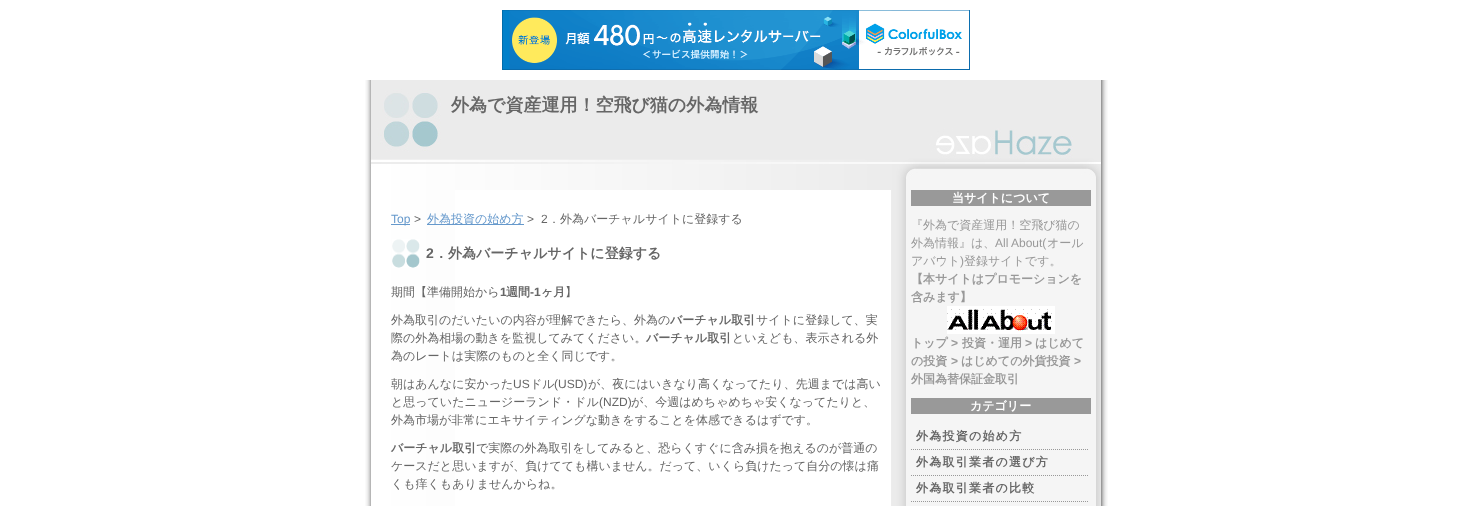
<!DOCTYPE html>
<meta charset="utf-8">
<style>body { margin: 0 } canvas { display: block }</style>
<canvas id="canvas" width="1472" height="506"></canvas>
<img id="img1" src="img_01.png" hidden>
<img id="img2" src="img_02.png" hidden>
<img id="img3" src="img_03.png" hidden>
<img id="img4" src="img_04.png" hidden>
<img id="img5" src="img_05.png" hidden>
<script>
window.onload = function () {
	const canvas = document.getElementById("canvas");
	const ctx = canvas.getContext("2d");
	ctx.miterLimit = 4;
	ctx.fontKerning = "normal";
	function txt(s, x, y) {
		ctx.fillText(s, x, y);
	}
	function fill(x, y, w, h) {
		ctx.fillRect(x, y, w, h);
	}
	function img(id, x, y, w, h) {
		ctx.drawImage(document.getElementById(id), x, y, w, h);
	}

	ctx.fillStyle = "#FFFFFF";
	fill(0, 0, 1472, 506);
	img("img1", 502, 10, 468, 60);
	img("img2", 365, 80, 743, 100);
	img("img3", 365, 180, 743, 326);
	fill(455, 190, 436, 316);
	ctx.fillStyle = "#6699CC";
	fill(391, 224, 19, 1);
	fill(427, 224, 97, 1);
	img("img4", 392, 239, 28, 29);
	ctx.fillStyle = "#999999";
	fill(911, 190, 180, 16);
	img("img5", 947, 306, 108, 28);
	fill(911, 398, 180, 16);
	ctx.beginPath();
	ctx.moveTo(911, 449.5);
	ctx.lineTo(1089, 449.5);
	ctx.strokeStyle = "#999999";
	ctx.setLineDash([1, 1]);
	ctx.stroke();
	ctx.beginPath();
	ctx.moveTo(911, 475.5);
	ctx.lineTo(1089, 475.5);
	ctx.stroke();
	ctx.beginPath();
	ctx.moveTo(911, 501.5);
	ctx.lineTo(1089, 501.5);
	ctx.stroke();
	ctx.font = "bold 18px WenQuanYi Zen Hei";
	ctx.fillStyle = "#666666";
	txt("外為で資産運用！空飛び猫の外為情報", 451, 111);
	ctx.font = "12px Liberation Sans";
	ctx.fillStyle = "#6699CC";
	txt("Top", 391, 223);
	ctx.fillStyle = "#666666";
	txt(">", 414, 223);
	ctx.font = "500 12px WenQuanYi Zen Hei";
	ctx.fillStyle = "#6699CC";
	txt("外為投資の始め方", 427, 223);
	ctx.font = "12px Liberation Sans";
	ctx.fillStyle = "#666666";
	txt(">", 527, 223);
	txt("2", 541, 223);
	ctx.font = "500 12px WenQuanYi Zen Hei";
	txt("．外為バーチャルサイトに登録する", 548, 223);
	ctx.font = "bold 14px Liberation Sans";
	txt("2", 426, 258);
	ctx.font = "bold 14px WenQuanYi Zen Hei";
	txt("．外為バーチャルサイトに登録する", 434, 258);
	ctx.font = "500 12px WenQuanYi Zen Hei";
	txt("期間【準備開始から", 391, 296);
	ctx.font = "bold 12px Liberation Sans";
	txt("1", 500, 296);
	ctx.font = "bold 12px WenQuanYi Zen Hei";
	txt("週間", 506, 296);
	ctx.font = "bold 12px Liberation Sans";
	txt("-1", 530, 296);
	ctx.font = "bold 12px WenQuanYi Zen Hei";
	txt("ヶ月", 541, 296);
	ctx.font = "500 12px WenQuanYi Zen Hei";
	txt("】", 565, 296);
	txt("外為取引のだいたいの内容が理解できたら、外為の", 391, 324);
	ctx.font = "bold 12px WenQuanYi Zen Hei";
	txt("バーチャル取引", 670, 324);
	ctx.font = "500 12px WenQuanYi Zen Hei";
	txt("サイトに登録して、実", 756, 324);
	txt("際の外為相場の動きを監視してみてください。", 391, 342);
	ctx.font = "bold 12px WenQuanYi Zen Hei";
	txt("バーチャル取引", 646, 342);
	ctx.font = "500 12px WenQuanYi Zen Hei";
	txt("といえども、表示される外", 732, 342);
	txt("為のレートは実際のものと全く同じです。", 391, 360);
	txt("朝はあんなに安かった", 391, 388);
	ctx.font = "12px Liberation Sans";
	txt("US", 513, 388);
	ctx.font = "500 12px WenQuanYi Zen Hei";
	txt("ドル", 530, 388);
	ctx.font = "12px Liberation Sans";
	txt("(USD)", 554, 388);
	ctx.font = "500 12px WenQuanYi Zen Hei";
	txt("が、夜にはいきなり高くなってたり、先週までは高い", 588, 388);
	txt("と思っていたニュージーランド・ドル", 391, 406);
	ctx.font = "12px Liberation Sans";
	txt("(NZD)", 599, 406);
	ctx.font = "500 12px WenQuanYi Zen Hei";
	txt("が、今週はめちゃめちゃ安くなってたりと、", 631, 406);
	txt("外為市場が非常にエキサイティングな動きをすることを体感できるはずです。", 391, 424);
	ctx.font = "bold 12px WenQuanYi Zen Hei";
	txt("バーチャル取引", 391, 452);
	ctx.font = "500 12px WenQuanYi Zen Hei";
	txt("で実際の外為取引をしてみると、恐らくすぐに含み損を抱えるのが普通の", 476, 452);
	txt("ケースだと思いますが、負けてても構いません。だって、いくら負けたって自分の懐は痛", 391, 470);
	txt("くも痒くもありませんからね。", 391, 488);
	ctx.font = "bold 12px WenQuanYi Zen Hei";
	ctx.fillStyle = "#FFFFFF";
	txt("当サイトについて", 952, 202);
	ctx.font = "500 12px WenQuanYi Zen Hei";
	ctx.fillStyle = "#999999";
	txt("『外為で資産運用！空飛び猫の", 911, 229);
	txt("外為情報』は、", 911, 247);
	ctx.font = "12px Liberation Sans";
	txt("All About(", 995, 247);
	ctx.font = "500 12px WenQuanYi Zen Hei";
	txt("オール", 1047, 247);
	txt("アバウト", 911, 265);
	ctx.font = "12px Liberation Sans";
	txt(")", 960, 265);
	ctx.font = "500 12px WenQuanYi Zen Hei";
	txt("登録サイトです。", 964, 265);
	ctx.font = "bold 12px WenQuanYi Zen Hei";
	txt("【本サイトはプロモーションを", 911, 283);
	txt("含みます】", 911, 301);
	txt("トップ", 911, 347);
	ctx.font = "bold 12px Liberation Sans";
	txt(">", 951, 347);
	ctx.font = "bold 12px WenQuanYi Zen Hei";
	txt("投資・運用", 962, 347);
	ctx.font = "bold 12px Liberation Sans";
	txt(">", 1025, 347);
	ctx.font = "bold 12px WenQuanYi Zen Hei";
	txt("はじめて", 1035, 347);
	txt("の投資", 911, 365);
	ctx.font = "bold 12px Liberation Sans";
	txt(">", 951, 365);
	ctx.font = "bold 12px WenQuanYi Zen Hei";
	txt("はじめての外貨投資", 961, 365);
	ctx.font = "bold 12px Liberation Sans";
	txt(">", 1074, 365);
	ctx.font = "bold 12px WenQuanYi Zen Hei";
	txt("外国為替保証金取引", 911, 383);
	ctx.fillStyle = "#FFFFFF";
	txt("カテゴリー", 970, 410);
	ctx.letterSpacing = "1.25px";
	ctx.fillStyle = "#666666";
	txt("外為投資の始め方", 916, 440);
	txt("外為取引業者の選び方", 916, 466);
	txt("外為取引業者の比較", 916, 492);
};
</script>
